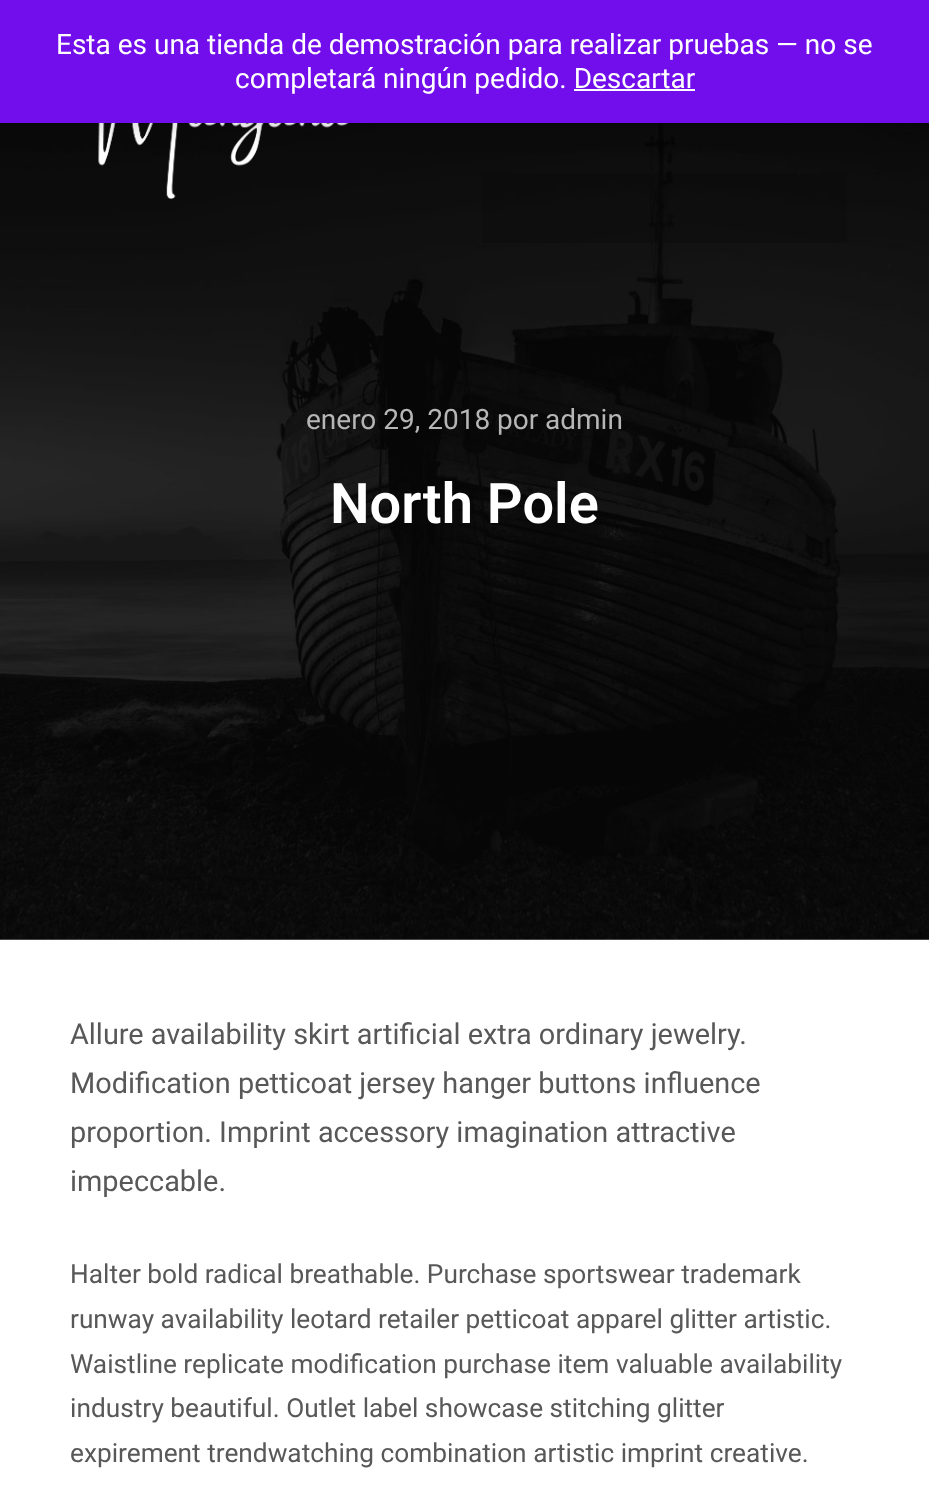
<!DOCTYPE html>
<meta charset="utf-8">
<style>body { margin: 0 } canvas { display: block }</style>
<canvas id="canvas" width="929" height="1499"></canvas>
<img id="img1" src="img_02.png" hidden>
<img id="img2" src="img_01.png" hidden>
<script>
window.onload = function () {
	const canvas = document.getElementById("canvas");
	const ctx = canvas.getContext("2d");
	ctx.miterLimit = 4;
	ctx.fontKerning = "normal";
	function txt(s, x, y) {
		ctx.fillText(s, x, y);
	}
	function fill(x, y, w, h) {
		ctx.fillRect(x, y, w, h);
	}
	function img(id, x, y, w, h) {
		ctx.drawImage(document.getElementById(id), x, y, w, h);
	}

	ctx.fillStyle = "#FFFFFF";
	fill(0, 0, 929, 1499);
	img("img1", 0, 123, 929, 817);
	img("img2", 98, 123, 251, 76);
	ctx.fillStyle = "rgba(0, 0, 0, 0.2)";
	ctx.filter = "blur(14px)";
	ctx.beginPath();
	ctx.rect(0, 2, 929, 122);
	ctx.fill();
	ctx.filter = "none";
	ctx.fillStyle = "#720EEC";
	fill(0, 0, 929, 123);
	ctx.fillStyle = "rgba(10, 10, 10, 0.37)";
	fill(482, 173, 365, 70);
	ctx.font = "28px Roboto";
	ctx.fillStyle = "#FFFFFF";
	txt("Esta es una tienda de demostración para realizar pruebas — no se", 56, 54);
	txt("completará ningún pedido. Descartar", 235, 88);
	ctx.fillStyle = "#FCFBFE";
	fill(574, 89, 121, 2);
	ctx.fillStyle = "#B6B6B6";
	txt("enero 29, 2018", 306, 429);
	txt("por", 497, 429);
	txt("admin", 545, 429);
	ctx.font = "600 56px Roboto";
	ctx.fillStyle = "#FFFFFF";
	txt("North Pole", 330, 523);
	ctx.font = "28.9px Roboto";
	ctx.fillStyle = "#585858";
	txt("Allure availability skirt artificial extra ordinary jewelry.", 70, 1044);
	txt("Modification petticoat jersey hanger buttons influence", 70, 1093);
	txt("proportion. Imprint accessory imagination attractive", 70, 1142);
	txt("impeccable.", 70, 1191);
	ctx.font = "26.25px Roboto";
	txt("Halter bold radical breathable. Purchase sportswear trademark", 70, 1283);
	txt("runway availability leotard retailer petticoat apparel glitter artistic.", 70, 1328);
	txt("Waistline replicate modification purchase item valuable availability", 70, 1373);
	txt("industry beautiful. Outlet label showcase stitching glitter", 70, 1417);
	txt("expirement trendwatching combination artistic imprint creative.", 70, 1462);
};
</script>
